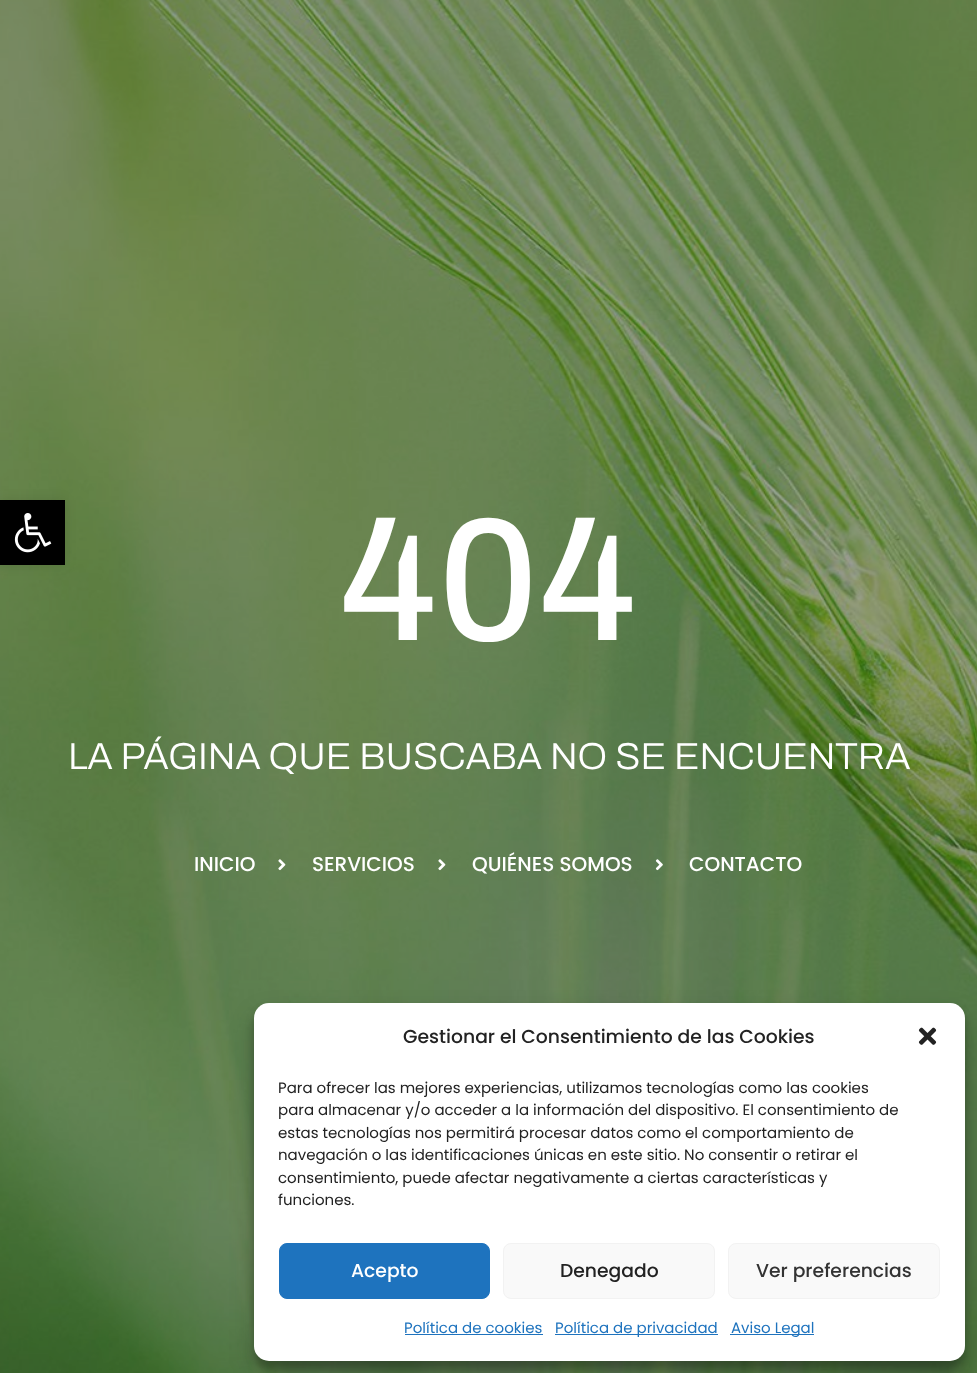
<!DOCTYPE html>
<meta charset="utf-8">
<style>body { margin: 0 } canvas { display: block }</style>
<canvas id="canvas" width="977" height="1373"></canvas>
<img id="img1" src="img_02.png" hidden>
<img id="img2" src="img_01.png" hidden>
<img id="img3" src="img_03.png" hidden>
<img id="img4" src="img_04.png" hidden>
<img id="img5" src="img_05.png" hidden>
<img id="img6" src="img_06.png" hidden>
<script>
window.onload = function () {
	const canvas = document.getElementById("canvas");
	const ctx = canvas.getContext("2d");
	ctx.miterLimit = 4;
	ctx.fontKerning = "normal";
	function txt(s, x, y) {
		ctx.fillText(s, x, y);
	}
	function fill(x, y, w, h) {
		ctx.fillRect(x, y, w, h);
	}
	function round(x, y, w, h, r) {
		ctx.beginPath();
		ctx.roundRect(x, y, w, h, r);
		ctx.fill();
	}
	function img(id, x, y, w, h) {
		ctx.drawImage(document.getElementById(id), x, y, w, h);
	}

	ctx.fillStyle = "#FFFFFF";
	fill(0, 0, 977, 1373);
	img("img1", 0, 0, 977, 1373);
	ctx.fillStyle = "rgba(0, 0, 0, 0.1)";
	ctx.filter = "blur(6px)";
	ctx.beginPath();
	ctx.rect(0, 500, 65, 65);
	ctx.fill();
	ctx.filter = "none";
	ctx.fillStyle = "#000000";
	fill(0, 500, 65, 65);
	img("img2", 14, 513, 38, 40);
	img("img3", 278, 859, 8, 12);
	img("img4", 438, 859, 8, 12);
	img("img5", 655, 859, 8, 12);
	ctx.fillStyle = "rgba(0, 0, 0, 0.23)";
	ctx.filter = "blur(4px)";
	ctx.beginPath();
	ctx.roundRect(254, 1010, 711, 359, 15);
	ctx.fill();
	ctx.filter = "none";
	ctx.fillStyle = "rgba(0, 0, 0, 0.19)";
	ctx.filter = "blur(12.5px)";
	ctx.beginPath();
	ctx.roundRect(254, 1015, 711, 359, 15);
	ctx.fill();
	ctx.filter = "none";
	ctx.fillStyle = "#FFFFFF";
	round(254, 1003, 711, 358, 15);
	img("img6", 918, 1027, 19, 18);
	ctx.fillStyle = "#1E73BE";
	ctx.beginPath();
	ctx.roundRect(279.5, 1243.5, 210, 55, 7.5);
	ctx.fill();
	ctx.strokeStyle = "#1E73BE";
	ctx.stroke();
	ctx.fillStyle = "#F9F9F9";
	ctx.beginPath();
	ctx.roundRect(503.5, 1243.5, 211, 55, 7.5);
	ctx.fill();
	ctx.strokeStyle = "#F2F2F2";
	ctx.stroke();
	ctx.beginPath();
	ctx.roundRect(728.5, 1243.5, 211, 55, 7.5);
	ctx.fill();
	ctx.stroke();
	ctx.fillStyle = "#1E73BE";
	fill(405, 1334, 138, 1);
	fill(555, 1334, 163, 1);
	fill(730, 1334, 84, 1);
	ctx.font = "500 175px Archivo";
	ctx.fillStyle = "#FFFFFF";
	txt("404", 339, 640);
	ctx.font = "300 37.5px Archivo";
	txt("LA PÁGINA QUE BUSCABA NO SE ENCUENTRA", 68, 769);
	ctx.font = "500 20px Poppins";
	txt("INICIO", 194, 871);
	txt("SERVICIOS", 312, 871);
	txt("QUIÉNES SOMOS", 472, 871);
	txt("CONTACTO", 689, 871);
	ctx.font = "500 18.75px Poppins";
	ctx.fillStyle = "#222222";
	txt("Gestionar el Consentimiento de las Cookies", 403, 1043);
	ctx.font = "15px Poppins";
	txt("Para ofrecer las mejores experiencias, utilizamos tecnologías como las cookies", 278, 1093);
	txt("para almacenar y/o acceder a la información del dispositivo. El consentimiento de", 278, 1115);
	txt("estas tecnologías nos permitirá procesar datos como el comportamiento de", 278, 1138);
	txt("navegación o las identificaciones únicas en este sitio. No consentir o retirar el", 278, 1160);
	txt("consentimiento, puede afectar negativamente a ciertas características y", 278, 1183);
	txt("funciones.", 278, 1205);
	ctx.font = "500 18.75px Poppins";
	ctx.fillStyle = "#FFFFFF";
	txt("Acepto", 351, 1277);
	ctx.fillStyle = "#222222";
	txt("Denegado", 560, 1277);
	ctx.fillStyle = "#333333";
	txt("Ver preferencias", 756, 1277);
	ctx.font = "15px Poppins";
	ctx.fillStyle = "#1E73BE";
	txt("Política de cookies", 404, 1333);
	txt("Política de privacidad", 555, 1333);
	txt("Aviso Legal", 731, 1333);
};
</script>
